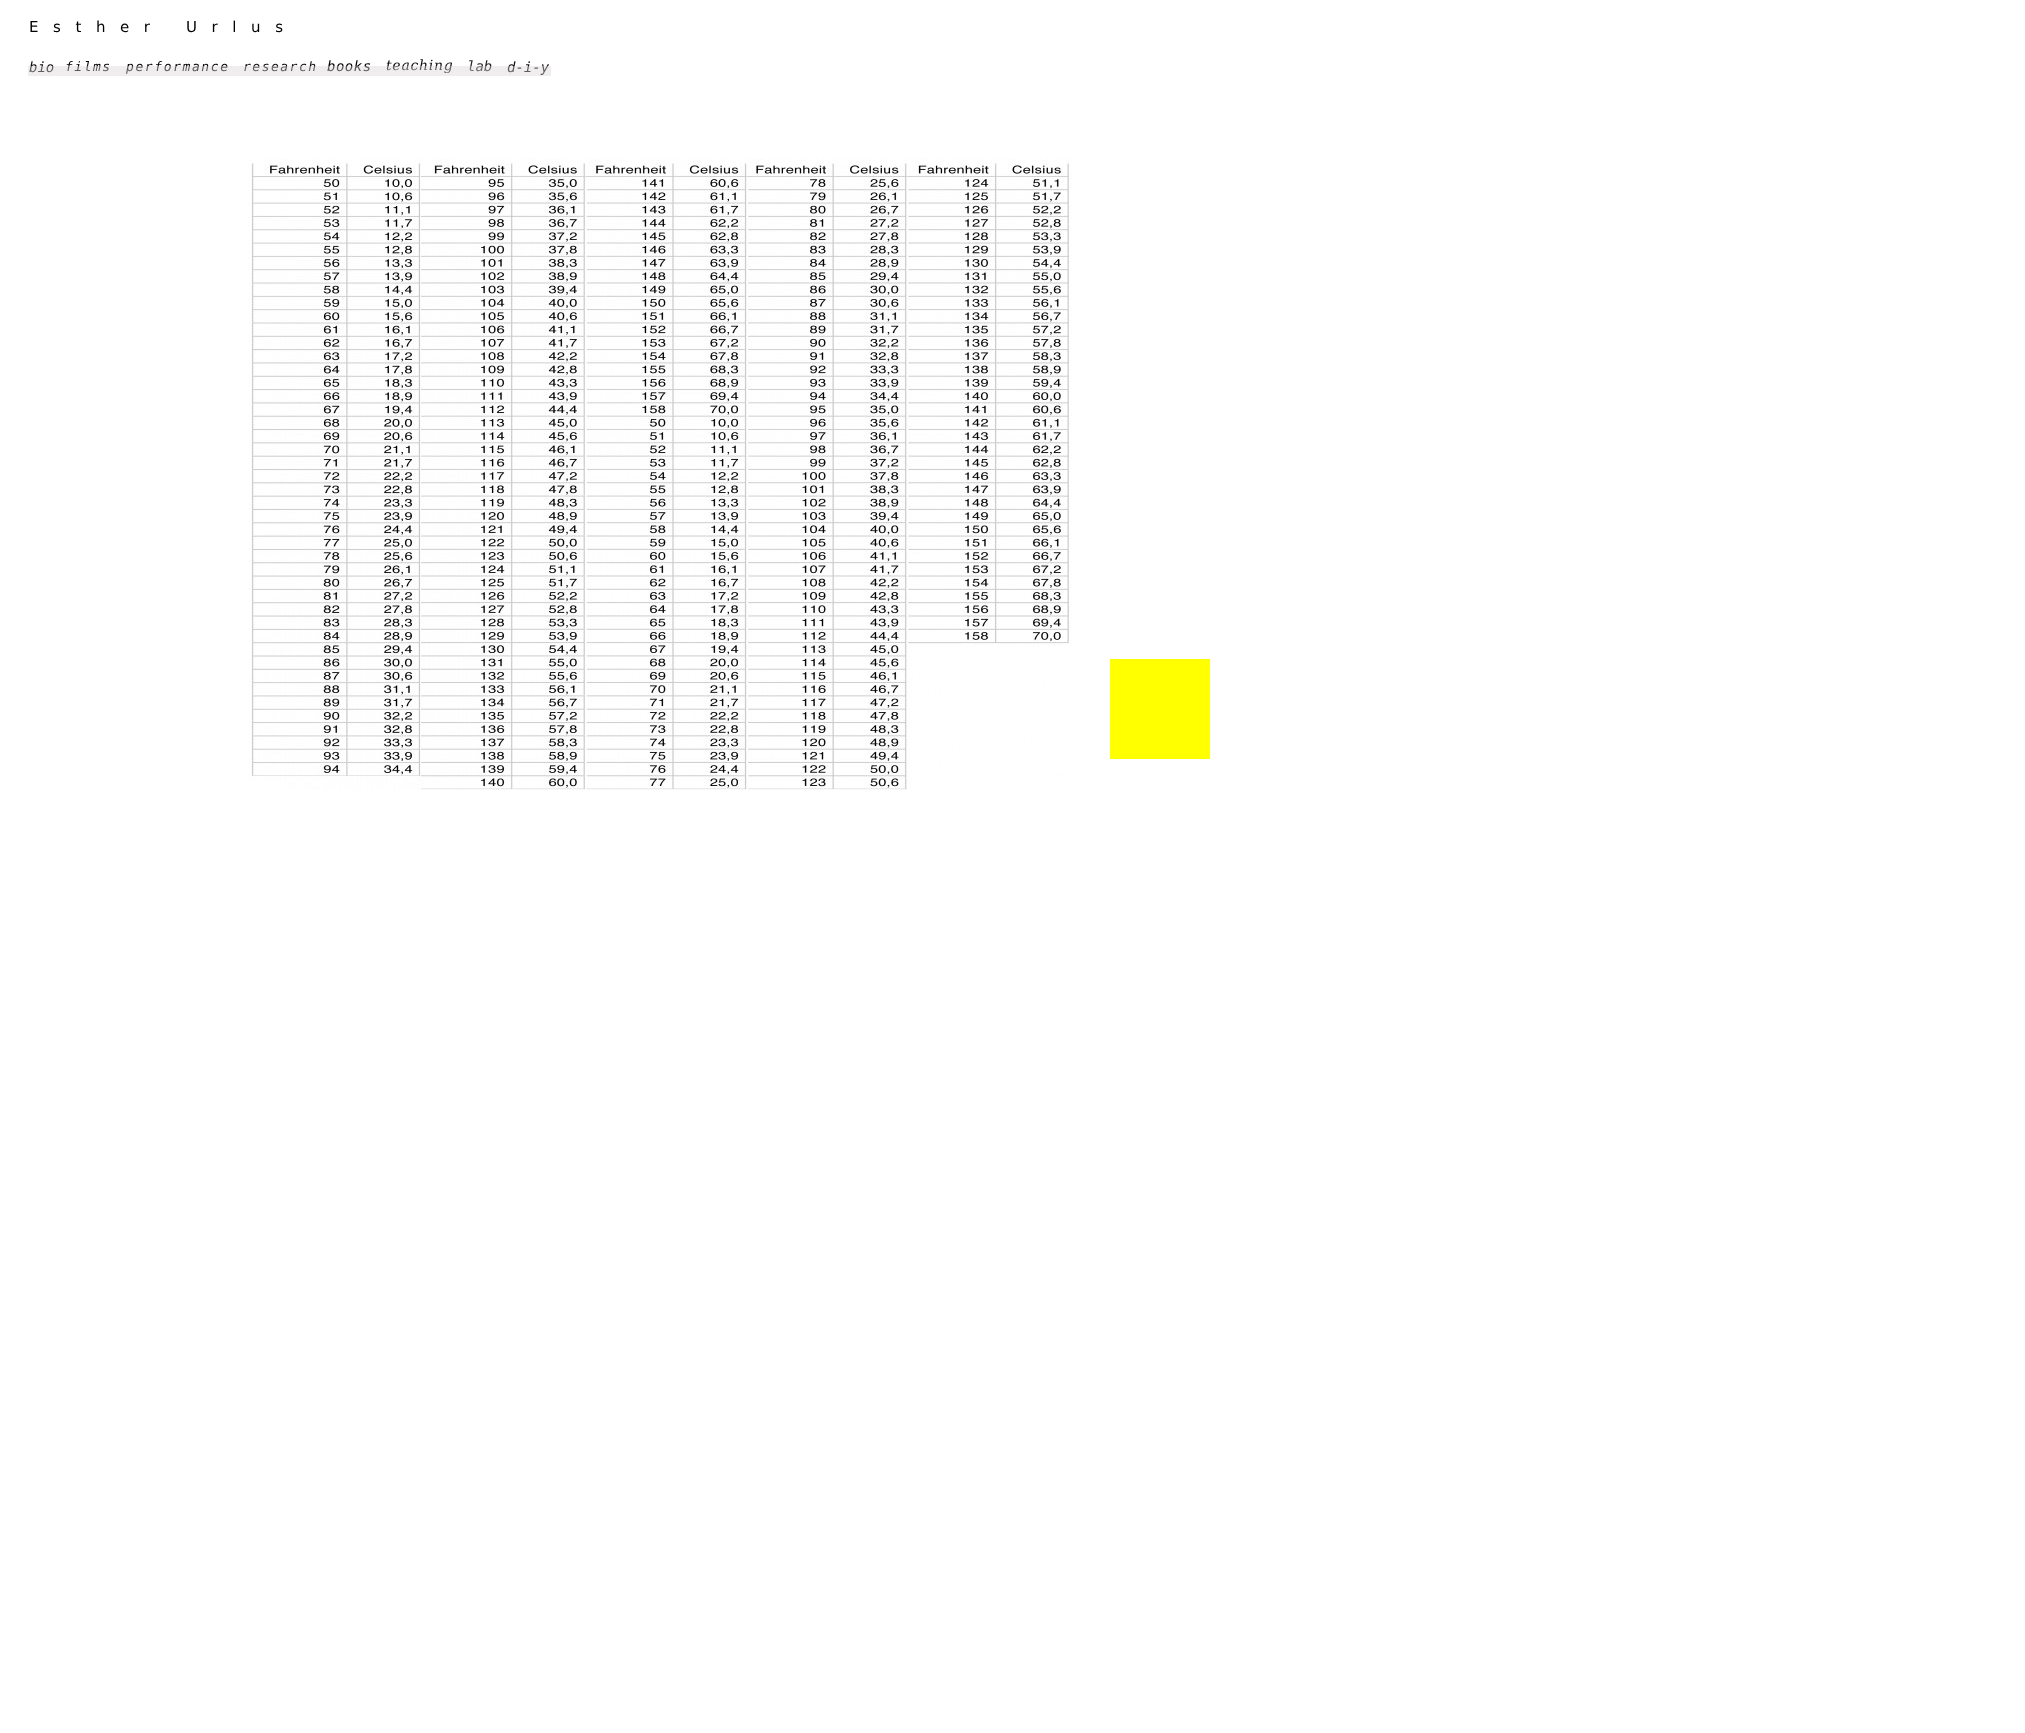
<!DOCTYPE html>
<meta charset="utf-8">
<style>body { margin: 0 } canvas { display: block }</style>
<canvas id="canvas" width="2025" height="1733"></canvas>
<img id="img1" src="img_01.png" hidden>
<script>
window.onload = function () {
	const canvas = document.getElementById("canvas");
	const ctx = canvas.getContext("2d");
	ctx.miterLimit = 4;
	ctx.fontKerning = "normal";
	function txt(s, x, y) {
		ctx.fillText(s, x, y);
	}
	function fill(x, y, w, h) {
		ctx.fillRect(x, y, w, h);
	}
	function img(id, x, y, w, h) {
		ctx.drawImage(document.getElementById(id), x, y, w, h);
	}

	ctx.fillStyle = "#FFFFFF";
	fill(0, 0, 2025, 1733);
	img("img1", 248, 158, 824, 632);
	ctx.fillStyle = "#FFFF00";
	fill(1110, 659, 100, 100);
	ctx.letterSpacing = "14.6px";
	ctx.wordSpacing = "2px";
	ctx.font = "15px DejaVu Sans";
	ctx.fillStyle = "#030202";
	txt("Esther Urlus", 29, 32);
	ctx.letterSpacing = "0px";
	ctx.wordSpacing = "0px";
	ctx.font = "italic 14px DejaVu Sans Mono";
	ctx.fillStyle = "#0D0C0C";
	txt("bio", 29, 72);
	ctx.letterSpacing = "1.5px";
	ctx.font = "italic 13px DejaVu Sans Mono";
	ctx.fillStyle = "#030202";
	txt("films", 65, 71);
	ctx.letterSpacing = "1.6px";
	txt("performance", 126, 71);
	ctx.letterSpacing = "1.5px";
	ctx.fillStyle = "#0D0C0C";
	txt("research", 243, 71);
	ctx.letterSpacing = "0.5px";
	ctx.font = "italic 14px DejaVu Sans Mono";
	ctx.fillStyle = "#030202";
	txt("books", 327, 71);
	ctx.letterSpacing = "0.75px";
	ctx.font = "italic 14px DejaVu Serif";
	ctx.fillStyle = "#0D0C0C";
	txt("teaching", 386, 70);
	ctx.letterSpacing = "0px";
	ctx.font = "italic 14px DejaVu Sans Mono";
	ctx.fillStyle = "#242323";
	txt("lab", 467, 71);
	ctx.fillStyle = "#0D0C0C";
	txt("d-i-y", 507, 72);
	ctx.fillStyle = "rgba(216, 211, 211, 0.41)";
	fill(28, 66, 523, 10);
};
</script>
